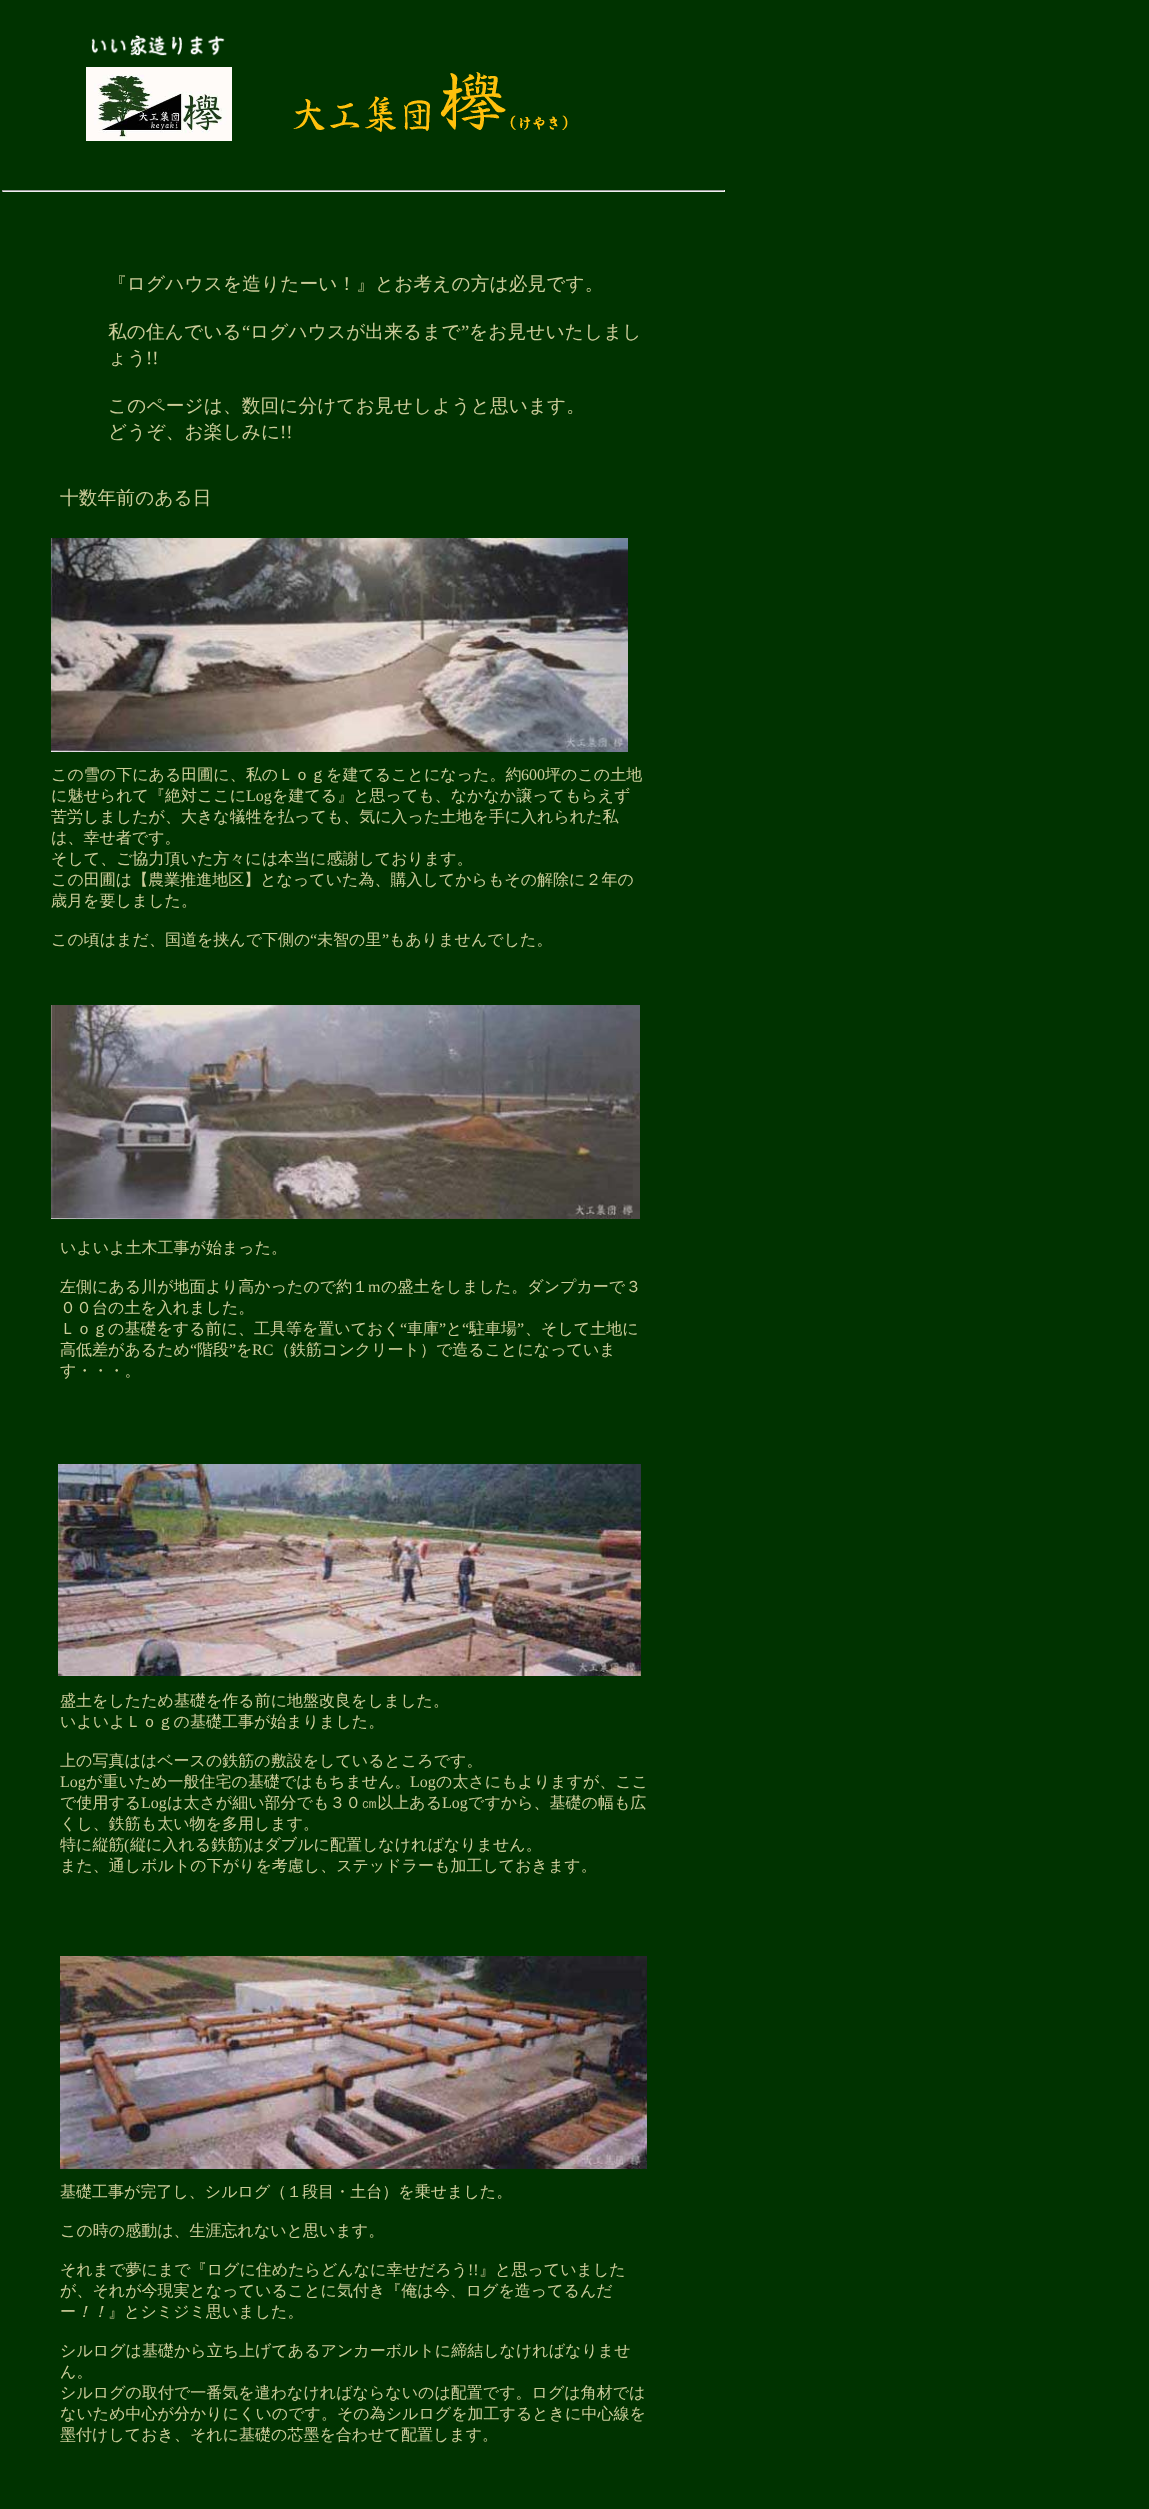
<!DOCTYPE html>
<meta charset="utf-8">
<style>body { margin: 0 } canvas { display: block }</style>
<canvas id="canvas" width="1149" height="2509"></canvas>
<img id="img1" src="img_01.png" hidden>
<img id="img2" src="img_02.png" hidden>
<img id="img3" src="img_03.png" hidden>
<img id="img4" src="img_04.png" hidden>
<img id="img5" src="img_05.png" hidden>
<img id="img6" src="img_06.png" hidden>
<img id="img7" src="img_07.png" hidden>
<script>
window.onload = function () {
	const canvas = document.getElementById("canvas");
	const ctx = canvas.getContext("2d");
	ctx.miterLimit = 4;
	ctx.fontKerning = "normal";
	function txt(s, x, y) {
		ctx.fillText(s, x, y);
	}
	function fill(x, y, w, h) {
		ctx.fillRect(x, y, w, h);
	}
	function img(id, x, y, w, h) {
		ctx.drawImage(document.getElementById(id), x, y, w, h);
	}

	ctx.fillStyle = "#003300";
	fill(0, 0, 1149, 2509);
	img("img1", 91, 35, 134, 21);
	img("img2", 86, 67, 146, 74);
	img("img3", 293, 72, 275, 60);
	ctx.fillStyle = "#9F9F9F";
	fill(2, 190, 723, 1);
	ctx.fillStyle = "#EEEEEE";
	fill(724, 190, 1, 2);
	fill(2, 191, 723, 1);
	ctx.fillStyle = "#9F9F9F";
	fill(2, 190, 1, 2);
	img("img4", 51, 538, 577, 214);
	img("img5", 51, 1005, 589, 214);
	img("img6", 58, 1464, 583, 212);
	img("img7", 60, 1956, 587, 213);
	ctx.letterSpacing = "0.1px";
	ctx.font = "500 18.7px WenQuanYi Zen Hei";
	ctx.fillStyle = "#CCCC99";
	txt("『ログハウスを造りたーい！』とお考えの方は必見です。", 108, 290);
	txt("私の住んでいる", 108, 338);
	ctx.font = "18.7px Liberation Serif";
	txt("“", 242, 338);
	ctx.font = "500 18.7px WenQuanYi Zen Hei";
	txt("ログハウスが出来るまで", 250, 338);
	ctx.font = "18.7px Liberation Serif";
	txt("”", 461, 338);
	ctx.font = "500 18.7px WenQuanYi Zen Hei";
	txt("をお見せいたしまし", 469, 338);
	txt("ょう", 108, 364);
	ctx.font = "18.7px Liberation Serif";
	txt("!!", 146, 364);
	ctx.font = "500 18.7px WenQuanYi Zen Hei";
	txt("このページは、数回に分けてお見せしようと思います。", 108, 412);
	txt("どうぞ、お楽しみに", 108, 438);
	ctx.font = "18.7px Liberation Serif";
	txt("!!", 280, 438);
	ctx.font = "500 18.7px WenQuanYi Zen Hei";
	txt("十数年前のある日", 60, 504);
	ctx.letterSpacing = "0px";
	ctx.font = "500 16px WenQuanYi Zen Hei";
	txt("この雪の下にある田圃に、私のＬｏｇを建てることになった。約", 51, 780);
	ctx.font = "16px Liberation Serif";
	txt("600", 521, 780);
	ctx.font = "500 16px WenQuanYi Zen Hei";
	txt("坪のこの土地", 545, 780);
	txt("に魅せられて『絶対ここに", 51, 801);
	ctx.font = "16px Liberation Serif";
	txt("Log", 246, 801);
	ctx.font = "500 16px WenQuanYi Zen Hei";
	txt("を建てる』と思っても、なかなか譲ってもらえず", 272, 801);
	txt("苦労しましたが、大きな犠牲を払っても、気に入った土地を手に入れられた私", 51, 822);
	txt("は、幸せ者です。", 51, 843);
	txt("そして、ご協力頂いた方々には本当に感謝しております。", 51, 864);
	txt("この田圃は【農業推進地区】となっていた為、購入してからもその解除に２年の", 51, 885);
	txt("歳月を要しました。", 51, 906);
	txt("この頃はまだ、国道を挟んで下側の", 51, 945);
	ctx.font = "16px Liberation Serif";
	txt("“", 310, 945);
	ctx.font = "500 16px WenQuanYi Zen Hei";
	txt("未智の里", 317, 945);
	ctx.font = "16px Liberation Serif";
	txt("”", 382, 945);
	ctx.font = "500 16px WenQuanYi Zen Hei";
	txt("もありませんでした。", 389, 945);
	txt("いよいよ土木工事が始まった。", 60, 1253);
	txt("左側にある川が地面より高かったので約１", 60, 1292);
	ctx.font = "16px Liberation Serif";
	txt("m", 368, 1292);
	ctx.font = "500 16px WenQuanYi Zen Hei";
	txt("の盛土をしました。ダンプカーで３", 381, 1292);
	txt("００台の土を入れました。", 60, 1313);
	txt("Ｌｏｇの基礎をする前に、工具等を置いておく", 60, 1334);
	ctx.font = "16px Liberation Serif";
	txt("“", 400, 1334);
	ctx.font = "500 16px WenQuanYi Zen Hei";
	txt("車庫", 407, 1334);
	ctx.font = "16px Liberation Serif";
	txt("”", 439, 1334);
	ctx.font = "500 16px WenQuanYi Zen Hei";
	txt("と", 446, 1334);
	ctx.font = "16px Liberation Serif";
	txt("“", 462, 1334);
	ctx.font = "500 16px WenQuanYi Zen Hei";
	txt("駐車場", 469, 1334);
	ctx.font = "16px Liberation Serif";
	txt("”", 517, 1334);
	ctx.font = "500 16px WenQuanYi Zen Hei";
	txt("、そして土地に", 525, 1334);
	txt("高低差があるため", 60, 1355);
	ctx.font = "16px Liberation Serif";
	txt("“", 190, 1355);
	ctx.font = "500 16px WenQuanYi Zen Hei";
	txt("階段", 197, 1355);
	ctx.font = "16px Liberation Serif";
	txt("”", 229, 1355);
	ctx.font = "500 16px WenQuanYi Zen Hei";
	txt("を", 236, 1355);
	ctx.font = "16px Liberation Serif";
	txt("RC", 252, 1355);
	ctx.font = "500 16px WenQuanYi Zen Hei";
	txt("（鉄筋コンクリート）で造ることになっていま", 274, 1355);
	txt("す・・・。", 60, 1376);
	txt("盛土をしたため基礎を作る前に地盤改良をしました。", 60, 1706);
	txt("いよいよＬｏｇの基礎工事が始まりました。", 60, 1727);
	txt("上の写真ははベースの鉄筋の敷設をしているところです。", 60, 1766);
	ctx.font = "16px Liberation Serif";
	txt("Log", 60, 1787);
	ctx.font = "500 16px WenQuanYi Zen Hei";
	txt("が重いため一般住宅の基礎ではもちません。", 86, 1787);
	ctx.font = "16px Liberation Serif";
	txt("Log", 410, 1787);
	ctx.font = "500 16px WenQuanYi Zen Hei";
	txt("の太さにもよりますが、ここ", 436, 1787);
	txt("で使用する", 60, 1808);
	ctx.font = "16px Liberation Serif";
	txt("Log", 141, 1808);
	ctx.font = "500 16px WenQuanYi Zen Hei";
	txt("は太さが細い部分でも３０㎝以上ある", 167, 1808);
	ctx.font = "16px Liberation Serif";
	txt("Log", 442, 1808);
	ctx.font = "500 16px WenQuanYi Zen Hei";
	txt("ですから、基礎の幅も広", 468, 1808);
	txt("くし、鉄筋も太い物を多用します。", 60, 1829);
	txt("特に縦筋", 60, 1850);
	ctx.font = "16px Liberation Serif";
	txt("(", 124, 1850);
	ctx.font = "500 16px WenQuanYi Zen Hei";
	txt("縦に入れる鉄筋", 130, 1850);
	ctx.font = "16px Liberation Serif";
	txt(")", 243, 1850);
	ctx.font = "500 16px WenQuanYi Zen Hei";
	txt("はダブルに配置しなければなりません。", 248, 1850);
	txt("また、通しボルトの下がりを考慮し、ステッドラーも加工しておきます。", 60, 1871);
	txt("基礎工事が完了し、シルログ（１段目・土台）を乗せました。", 60, 2197);
	txt("この時の感動は、生涯忘れないと思います。", 60, 2236);
	txt("それまで夢にまで『ログに住めたらどんなに幸せだろう", 60, 2275);
	ctx.font = "16px Liberation Serif";
	txt("!!", 468, 2275);
	ctx.font = "500 16px WenQuanYi Zen Hei";
	txt("』と思っていました", 479, 2275);
	txt("が、それが今現実となっていることに気付き『俺は今、ログを造ってるんだ", 60, 2296);
	txt("ー", 60, 2317);
	ctx.font = "italic 500 16px WenQuanYi Zen Hei";
	txt("！！", 76, 2317);
	ctx.font = "500 16px WenQuanYi Zen Hei";
	txt("』とシミジミ思いました。", 108, 2317);
	txt("シルログは基礎から立ち上げてあるアンカーボルトに締結しなければなりませ", 60, 2356);
	txt("ん。", 60, 2377);
	txt("シルログの取付で一番気を遣わなければならないのは配置です。ログは角材では", 60, 2398);
	txt("ないため中心が分かりにくいのです。その為シルログを加工するときに中心線を", 60, 2419);
	txt("墨付けしておき、それに基礎の芯墨を合わせて配置します。", 60, 2440);
};
</script>
